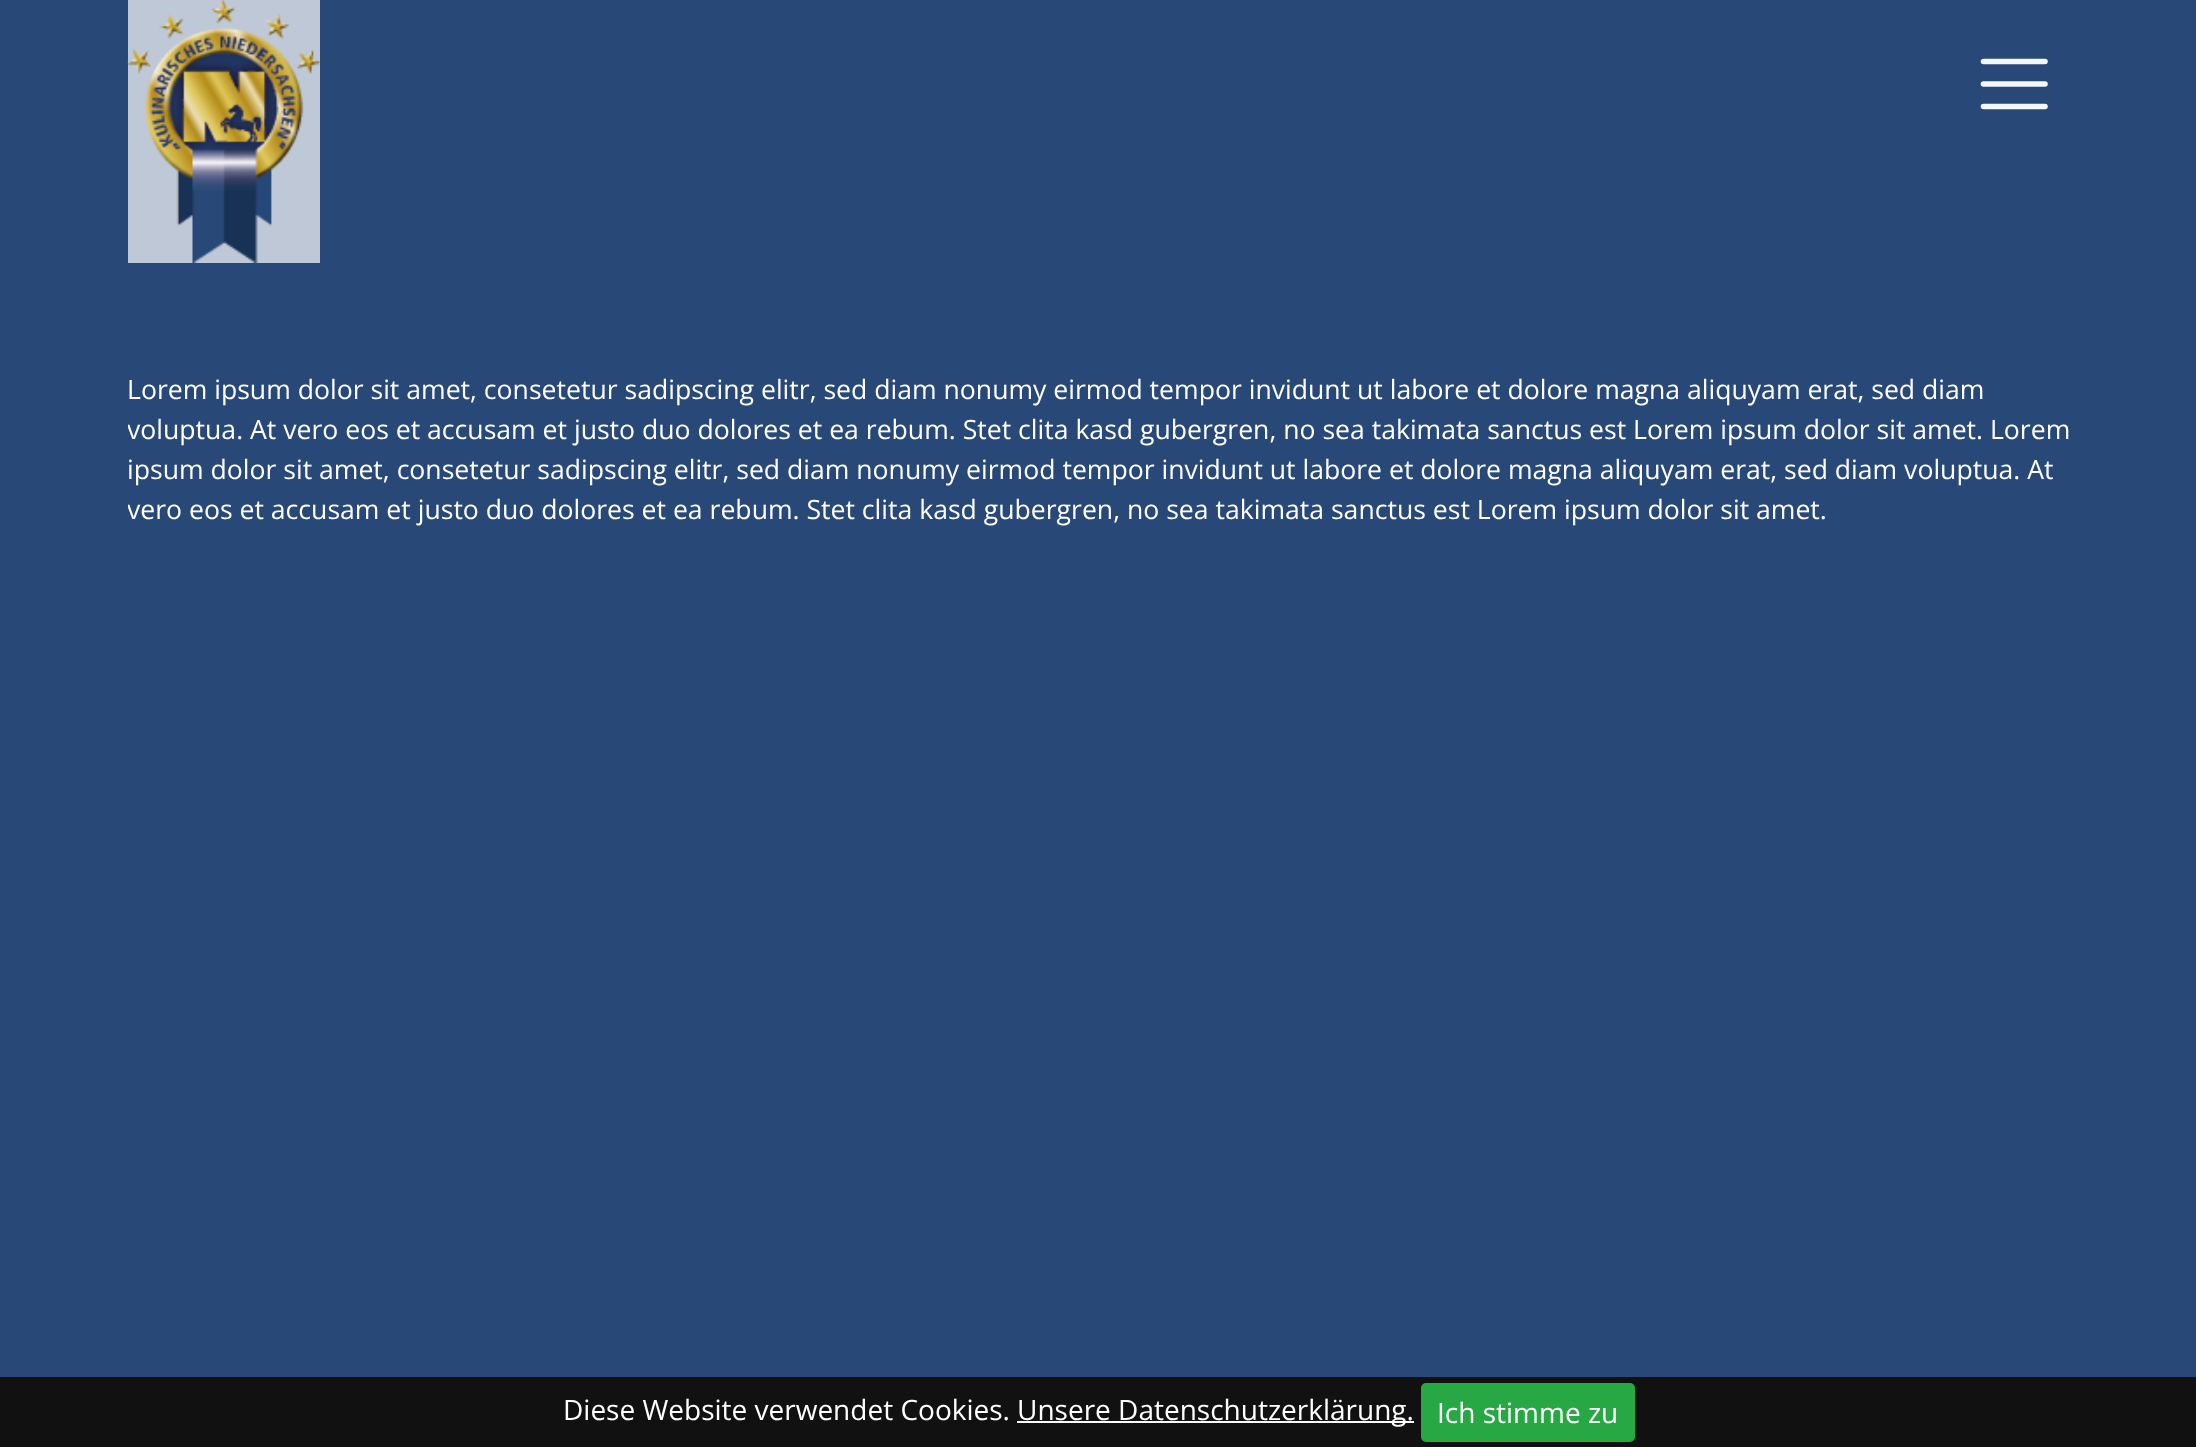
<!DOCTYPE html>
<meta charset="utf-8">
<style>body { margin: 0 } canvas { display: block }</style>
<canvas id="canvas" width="2196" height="1447"></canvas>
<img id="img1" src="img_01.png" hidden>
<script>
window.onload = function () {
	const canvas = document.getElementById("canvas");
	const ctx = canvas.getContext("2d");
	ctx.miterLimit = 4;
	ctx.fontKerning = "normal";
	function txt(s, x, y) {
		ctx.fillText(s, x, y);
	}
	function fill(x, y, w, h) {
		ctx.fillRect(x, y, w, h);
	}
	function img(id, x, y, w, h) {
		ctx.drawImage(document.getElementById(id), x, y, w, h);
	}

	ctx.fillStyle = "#284878";
	fill(0, 0, 2196, 1447);
	ctx.fillStyle = "#BFC8D7";
	fill(128, 0, 192, 263);
	img("img1", 127, 0, 193, 263);
	ctx.beginPath();
	ctx.moveTo(1983.5, 61.5);
	ctx.lineTo(2045, 61.5);
	ctx.moveTo(1983.5, 84);
	ctx.lineTo(2045, 84);
	ctx.moveTo(1983.5, 106.5);
	ctx.lineTo(2045, 106.5);
	ctx.strokeStyle = "#F4F6F8";
	ctx.lineWidth = 5.6;
	ctx.lineCap = "round";
	ctx.stroke();
	ctx.fillStyle = "#111111";
	fill(0, 1377, 2196, 70);
	ctx.fillStyle = "#FFFFFF";
	fill(1017, 1421, 397, 2);
	ctx.fillStyle = "#28A745";
	ctx.beginPath();
	ctx.roundRect(1422, 1384, 212, 57, 4);
	ctx.fill();
	ctx.strokeStyle = "#28A745";
	ctx.lineWidth = 2;
	ctx.stroke();
	ctx.font = "26.6px Open Sans";
	ctx.fillStyle = "#FFFFFF";
	txt("Lorem ipsum dolor sit amet, consetetur sadipscing elitr, sed diam nonumy eirmod tempor invidunt ut labore et dolore magna aliquyam erat, sed diam", 127, 399);
	ctx.save();
	ctx.beginPath();
	ctx.rect(128, 369, 1942, 256);
	ctx.clip();
	txt("voluptua. At vero eos et accusam et justo duo dolores et ea rebum. Stet clita kasd gubergren, no sea takimata sanctus est Lorem ipsum dolor sit amet. Lorem", 127, 439);
	ctx.restore();
	txt("ipsum dolor sit amet, consetetur sadipscing elitr, sed diam nonumy eirmod tempor invidunt ut labore et dolore magna aliquyam erat, sed diam voluptua. At", 127, 479);
	ctx.save();
	ctx.beginPath();
	ctx.rect(128, 369, 1942, 256);
	ctx.clip();
	txt("vero eos et accusam et justo duo dolores et ea rebum. Stet clita kasd gubergren, no sea takimata sanctus est Lorem ipsum dolor sit amet.", 127, 519);
	ctx.restore();
	ctx.font = "28px Open Sans";
	txt("Diese Website verwendet Cookies.", 563, 1420);
	txt("Unsere Datenschutzerklärung.", 1017, 1420);
	txt("Ich stimme zu", 1437, 1423);
};
</script>
